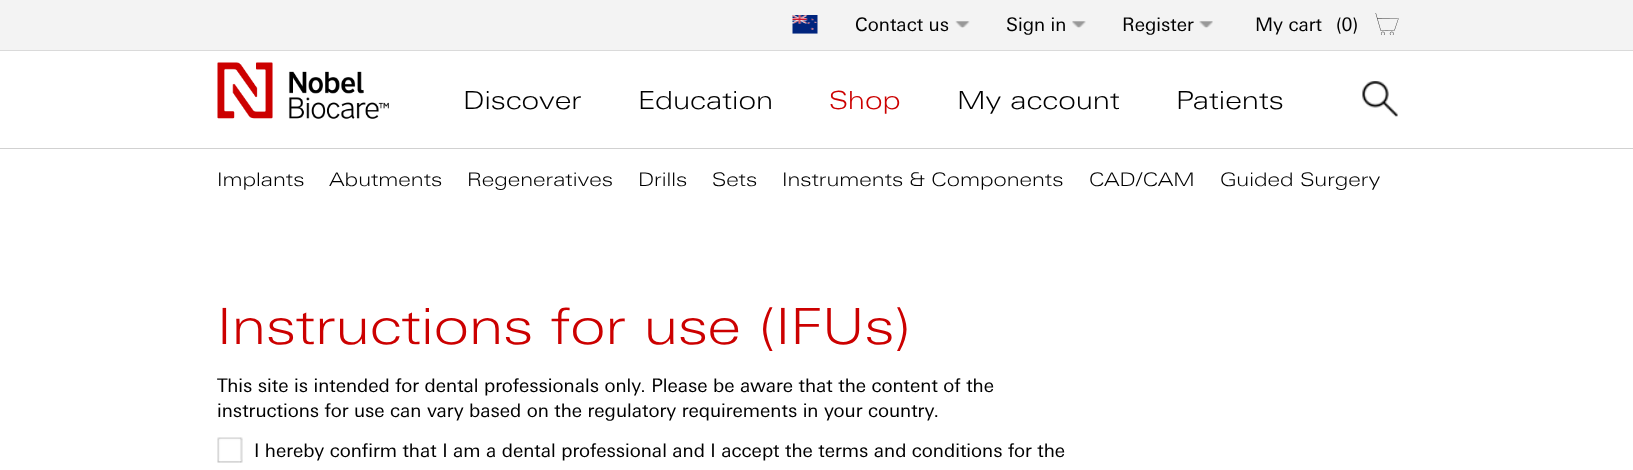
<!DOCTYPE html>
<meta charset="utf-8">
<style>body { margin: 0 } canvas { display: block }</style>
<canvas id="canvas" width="1633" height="470"></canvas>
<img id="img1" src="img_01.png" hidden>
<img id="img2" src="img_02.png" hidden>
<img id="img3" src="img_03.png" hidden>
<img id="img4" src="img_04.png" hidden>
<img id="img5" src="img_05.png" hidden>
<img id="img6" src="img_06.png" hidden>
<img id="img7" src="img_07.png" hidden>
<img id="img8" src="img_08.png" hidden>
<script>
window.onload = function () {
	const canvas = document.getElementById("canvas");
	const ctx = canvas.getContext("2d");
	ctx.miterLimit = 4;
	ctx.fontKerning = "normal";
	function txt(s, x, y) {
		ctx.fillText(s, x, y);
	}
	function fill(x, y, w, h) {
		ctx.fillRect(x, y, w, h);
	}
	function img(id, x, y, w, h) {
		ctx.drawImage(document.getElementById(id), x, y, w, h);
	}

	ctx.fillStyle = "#FFFFFF";
	fill(0, 0, 1633, 470);
	ctx.fillStyle = "#D1D1D1";
	fill(0, 148, 1633, 1);
	ctx.fillStyle = "#F3F3F3";
	fill(0, 0, 1633, 50);
	ctx.fillStyle = "#DADADA";
	fill(0, 50, 1633, 1);
	img("img1", 792, 15, 26, 19);
	img("img2", 955, 21, 15, 7);
	img("img3", 1072, 21, 14, 7);
	img("img4", 1199, 21, 14, 7);
	img("img5", 1375, 13, 24, 22);
	img("img6", 217, 62, 172, 57);
	img("img7", 1362, 81, 36, 36);
	img("img8", 217, 437, 26, 26);
	ctx.font = "18.75px 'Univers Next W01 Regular'";
	ctx.fillStyle = "#000000";
	txt("Contact us", 855, 31);
	txt("Sign in", 1006, 31);
	txt("Register", 1122, 31);
	ctx.font = "18.75px 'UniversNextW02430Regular'";
	txt("My cart", 1255, 31);
	txt("(0)", 1336, 31);
	ctx.font = "300 25px 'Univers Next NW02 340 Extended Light'";
	txt("Discover", 463, 109);
	txt("Education", 638, 109);
	ctx.fillStyle = "#CC0000";
	txt("Shop", 829, 109);
	ctx.fillStyle = "#000000";
	txt("My account", 957, 109);
	txt("Patients", 1176, 109);
	ctx.font = "300 18.75px 'Univers Next NW02 340 Extended Light'";
	txt("Implants", 217, 186);
	txt("Abutments", 329, 186);
	txt("Regeneratives", 467, 186);
	txt("Drills", 638, 186);
	txt("Sets", 712, 186);
	txt("Instruments & Components", 782, 186);
	txt("CAD/CAM", 1089, 186);
	txt("Guided Surgery", 1220, 186);
	ctx.font = "300 50px 'Univers Next NW02 340 Extended Light'";
	ctx.fillStyle = "#CC0000";
	txt("Instructions for use (IFUs)", 217, 344);
	ctx.font = "18.75px 'Univers Next W01 Regular'";
	ctx.fillStyle = "#000000";
	txt("This site is intended for dental professionals only. Please be aware that the content of the", 217, 392);
	txt("instructions for use can vary based on the regulatory requirements in your country.", 217, 417);
	txt("I hereby confirm that I am a dental professional and I accept the terms and conditions for the", 254, 457);
};
</script>
